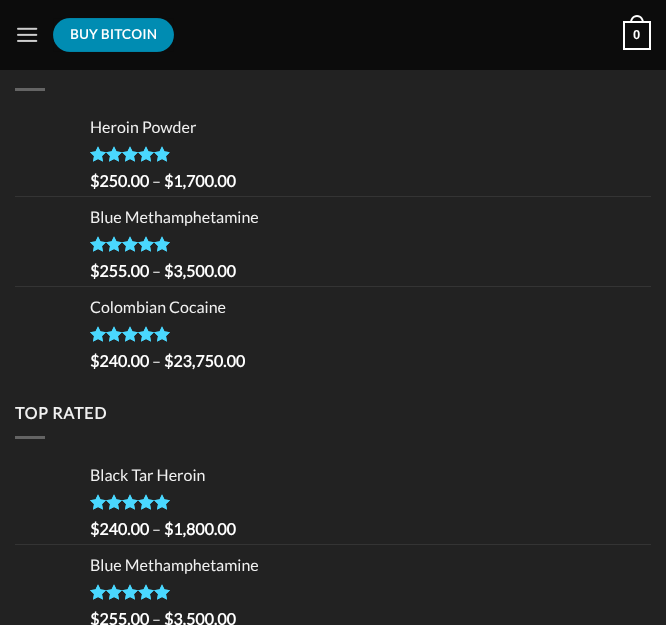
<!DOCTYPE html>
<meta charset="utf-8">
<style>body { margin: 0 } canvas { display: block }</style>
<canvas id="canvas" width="666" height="625"></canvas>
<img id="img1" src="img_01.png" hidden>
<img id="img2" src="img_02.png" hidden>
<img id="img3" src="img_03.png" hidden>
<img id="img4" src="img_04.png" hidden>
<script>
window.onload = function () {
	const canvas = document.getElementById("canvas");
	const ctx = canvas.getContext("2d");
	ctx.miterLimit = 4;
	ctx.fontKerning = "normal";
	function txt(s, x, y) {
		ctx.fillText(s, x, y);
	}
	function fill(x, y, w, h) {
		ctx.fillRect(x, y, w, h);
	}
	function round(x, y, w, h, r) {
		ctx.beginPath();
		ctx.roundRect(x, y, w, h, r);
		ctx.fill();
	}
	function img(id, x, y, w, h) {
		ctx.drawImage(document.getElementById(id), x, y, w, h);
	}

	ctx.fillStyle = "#222222";
	fill(0, 0, 666, 625);
	ctx.fillStyle = "rgba(10, 10, 10, 0.9)";
	fill(0, 0, 666, 70);
	img("img1", 17, 27, 21, 15);
	ctx.fillStyle = "#008CB2";
	round(53, 18, 121, 34, 17);
	ctx.strokeStyle = "rgba(0, 0, 0, 0.05)";
	ctx.strokeRect(53.5, 18.5, 120, 33);
	ctx.strokeStyle = "#FFFFFF";
	ctx.lineWidth = 2;
	ctx.strokeRect(624, 22, 26, 27);
	ctx.fillStyle = "#FFFFFF";
	ctx.beginPath();
	ctx.moveTo(637, 15);
	ctx.bezierCurveTo(641.5, 15, 644, 19, 644, 23);
	ctx.lineTo(630, 23);
	ctx.bezierCurveTo(630, 19, 632.5, 15, 637, 15);
	ctx.closePath();
	ctx.moveTo(637, 17);
	ctx.bezierCurveTo(640.5, 17, 642, 20, 642, 23);
	ctx.lineTo(632, 23);
	ctx.bezierCurveTo(632, 20, 633.5, 17, 637, 17);
	ctx.closePath();
	ctx.fill("evenodd");
	ctx.fillStyle = "#646464";
	fill(15, 88, 30, 3);
	img("img2", 90, 146, 80, 16);
	img("img3", 90, 146, 79, 16);
	ctx.fillStyle = "#343434";
	fill(15, 196, 636, 1);
	img("img2", 90, 236, 80, 16);
	img("img4", 90, 236, 80, 16);
	fill(15, 286, 636, 1);
	img("img2", 90, 326, 80, 16);
	img("img4", 90, 326, 80, 16);
	ctx.fillStyle = "#646464";
	fill(15, 436, 30, 3);
	img("img2", 90, 494, 80, 16);
	img("img4", 90, 494, 80, 16);
	ctx.fillStyle = "#343434";
	fill(15, 544, 636, 1);
	img("img2", 90, 584, 80, 16);
	img("img4", 90, 584, 80, 16);
	ctx.letterSpacing = "0.4px";
	ctx.font = "bold 13.25px Lato";
	ctx.fillStyle = "#FFFFFF";
	txt("BUY BITCOIN", 70, 39);
	ctx.letterSpacing = "0px";
	ctx.font = "bold 13px Liberation Sans";
	txt("0", 633, 39);
	ctx.font = "16px Lato";
	ctx.fillStyle = "#F1F1F1";
	txt("Heroin Powder", 90, 133);
	ctx.font = "bold 16px Lato";
	ctx.fillStyle = "#FFFFFF";
	txt("$250.00", 90, 187);
	ctx.font = "16px Lato";
	ctx.fillStyle = "#F1F1F1";
	txt("–", 152, 187);
	ctx.font = "bold 16px Lato";
	ctx.fillStyle = "#FFFFFF";
	txt("$1,700.00", 164, 187);
	ctx.font = "16px Lato";
	ctx.fillStyle = "#F1F1F1";
	txt("Blue Methamphetamine", 90, 223);
	ctx.font = "bold 16px Lato";
	ctx.fillStyle = "#FFFFFF";
	txt("$255.00", 90, 277);
	ctx.font = "16px Lato";
	ctx.fillStyle = "#F1F1F1";
	txt("–", 152, 277);
	ctx.font = "bold 16px Lato";
	ctx.fillStyle = "#FFFFFF";
	txt("$3,500.00", 164, 277);
	ctx.font = "16px Lato";
	ctx.fillStyle = "#F1F1F1";
	txt("Colombian Cocaine", 90, 313);
	ctx.font = "bold 16px Lato";
	ctx.fillStyle = "#FFFFFF";
	txt("$240.00", 90, 367);
	ctx.font = "16px Lato";
	ctx.fillStyle = "#F1F1F1";
	txt("–", 152, 367);
	ctx.font = "bold 16px Lato";
	ctx.fillStyle = "#FFFFFF";
	txt("$23,750.00", 164, 367);
	ctx.letterSpacing = "0.75px";
	ctx.fillStyle = "#F1F1F1";
	txt("TOP RATED", 15, 419);
	ctx.letterSpacing = "0px";
	ctx.font = "16px Lato";
	txt("Black Tar Heroin", 90, 481);
	ctx.font = "bold 16px Lato";
	ctx.fillStyle = "#FFFFFF";
	txt("$240.00", 90, 535);
	ctx.font = "16px Lato";
	ctx.fillStyle = "#F1F1F1";
	txt("–", 152, 535);
	ctx.font = "bold 16px Lato";
	ctx.fillStyle = "#FFFFFF";
	txt("$1,800.00", 164, 535);
	ctx.font = "16px Lato";
	ctx.fillStyle = "#F1F1F1";
	txt("Blue Methamphetamine", 90, 571);
	ctx.font = "bold 16px Lato";
	ctx.fillStyle = "#FFFFFF";
	txt("$255.00", 90, 625);
	ctx.font = "16px Lato";
	ctx.fillStyle = "#F1F1F1";
	txt("–", 152, 625);
	ctx.font = "bold 16px Lato";
	ctx.fillStyle = "#FFFFFF";
	txt("$3,500.00", 164, 625);
};
</script>
